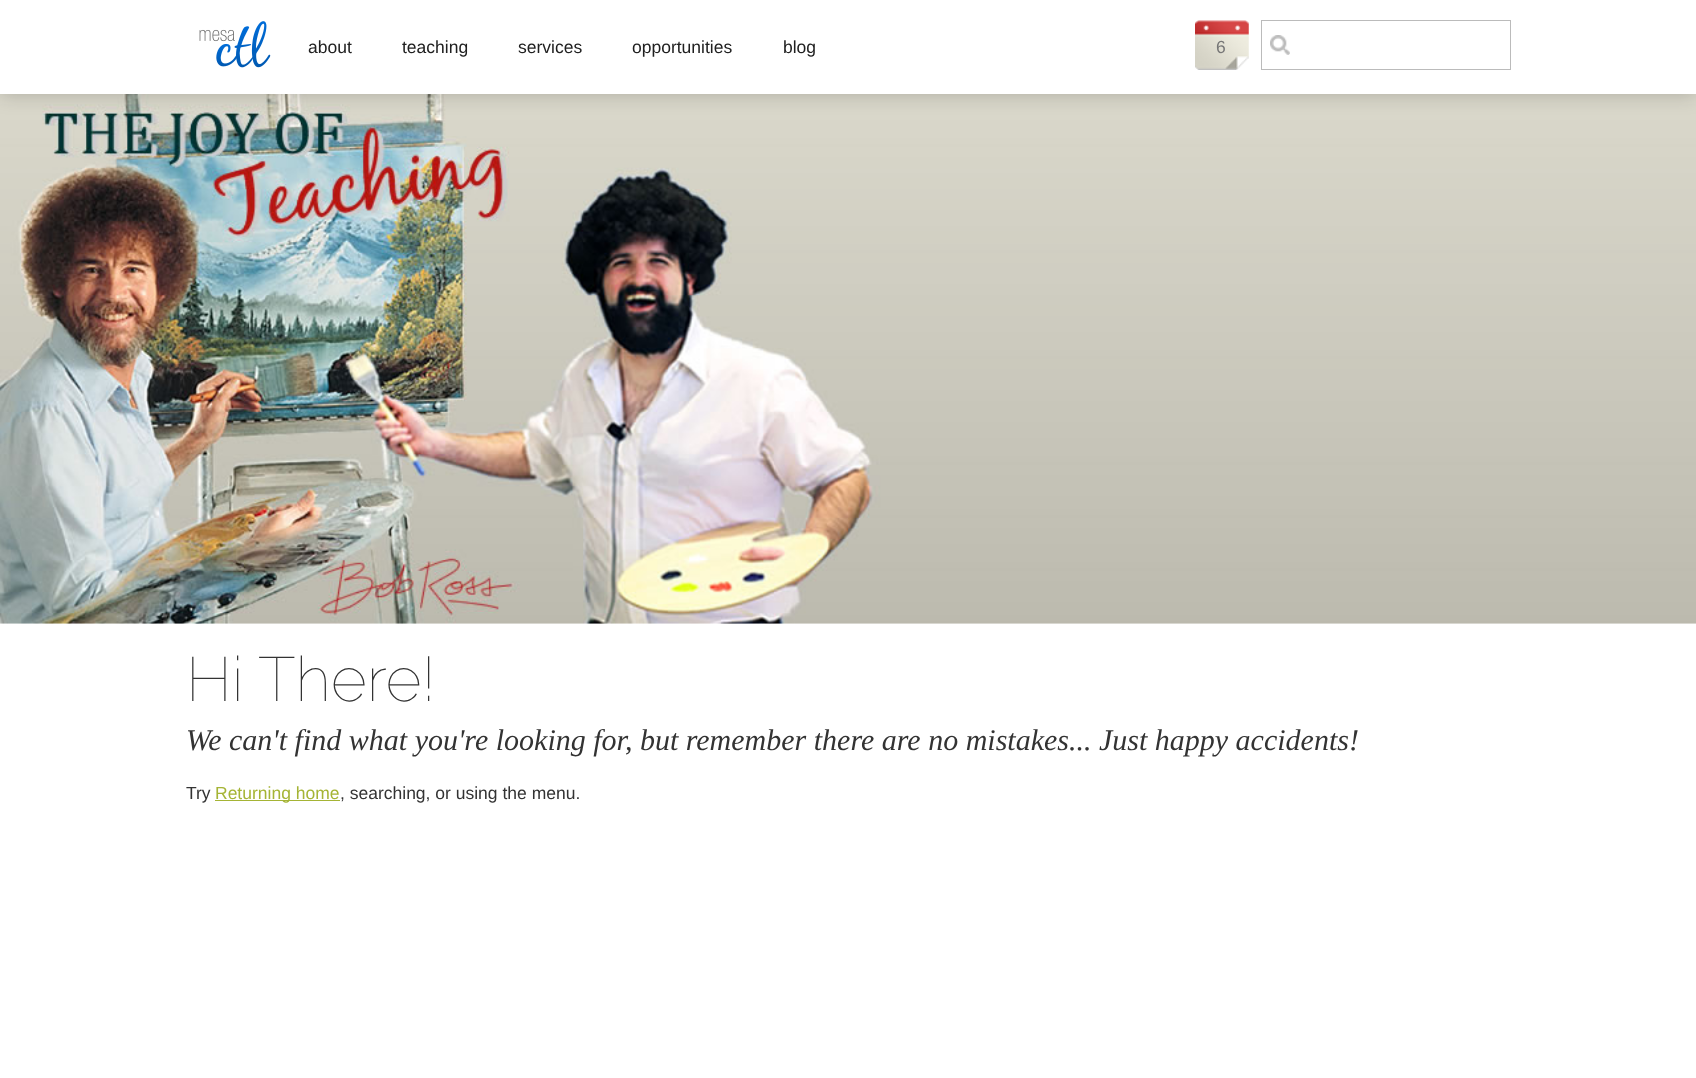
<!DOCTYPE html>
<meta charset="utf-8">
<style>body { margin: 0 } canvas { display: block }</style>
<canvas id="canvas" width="1696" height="1078"></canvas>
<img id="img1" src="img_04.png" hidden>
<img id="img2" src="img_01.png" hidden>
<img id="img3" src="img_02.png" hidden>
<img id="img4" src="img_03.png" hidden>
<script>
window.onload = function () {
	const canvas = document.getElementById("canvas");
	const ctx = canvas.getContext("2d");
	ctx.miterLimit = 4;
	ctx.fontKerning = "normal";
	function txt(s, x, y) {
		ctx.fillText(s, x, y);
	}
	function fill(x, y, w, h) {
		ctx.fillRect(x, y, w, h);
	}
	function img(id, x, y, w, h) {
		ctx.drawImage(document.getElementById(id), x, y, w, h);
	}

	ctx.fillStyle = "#FFFFFF";
	fill(0, 0, 1696, 1078);
	img("img1", 0, 94, 1696, 530);
	ctx.fillStyle = "rgba(0, 0, 0, 0.2)";
	ctx.filter = "blur(9.5px)";
	ctx.beginPath();
	ctx.rect(0, 1, 1696, 94);
	ctx.fill();
	ctx.filter = "none";
	ctx.fillStyle = "#FFFFFF";
	fill(0, 0, 1696, 94);
	img("img2", 199, 21, 72, 47);
	img("img3", 1195, 20, 54, 50);
	img("img4", 1270, 35, 20, 20);
	ctx.strokeStyle = "#BBBBBB";
	ctx.strokeRect(1261.5, 20.5, 249, 49);
	ctx.fillStyle = "#A5B435";
	fill(215, 800, 125, 1);
	ctx.font = "17.5px Liberation Sans";
	ctx.fillStyle = "#202020";
	txt("about", 308, 53);
	txt("teaching", 402, 53);
	txt("services", 518, 53);
	txt("opportunities", 632, 53);
	txt("blog", 783, 53);
	ctx.fillStyle = "#777777";
	txt("6", 1216, 53);
	ctx.font = "100 62.5px Raleway";
	ctx.fillStyle = "#333333";
	txt("Hi There!", 186, 701);
	ctx.font = "italic 30px Liberation Serif";
	txt("We can't find what you're looking for, but remember there are no mistakes... Just happy accidents!", 186, 750);
	ctx.font = "17.5px Liberation Sans";
	txt("Try", 186, 799);
	ctx.fillStyle = "#A5B435";
	txt("Returning home", 215, 799);
	ctx.fillStyle = "#333333";
	txt(", searching, or using the menu.", 340, 799);
};
</script>
